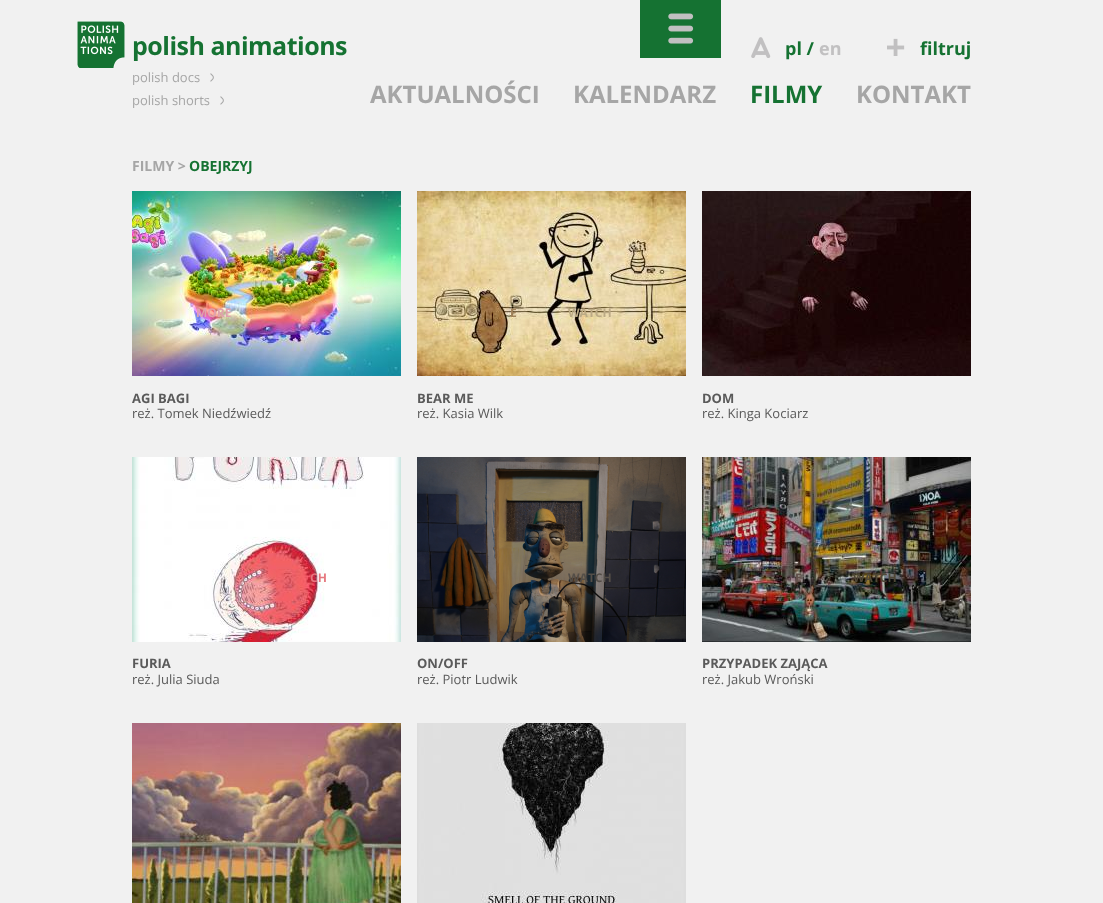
<!DOCTYPE html>
<meta charset="utf-8">
<style>body { margin: 0 } canvas { display: block }</style>
<canvas id="canvas" width="1103" height="903"></canvas>
<img id="img1" src="img_01.png" hidden>
<img id="img2" src="img_02.png" hidden>
<img id="img3" src="img_03.png" hidden>
<img id="img4" src="img_04.png" hidden>
<img id="img5" src="img_05.png" hidden>
<img id="img6" src="img_06.png" hidden>
<img id="img7" src="img_07.png" hidden>
<img id="img8" src="img_08.png" hidden>
<img id="img9" src="img_09.png" hidden>
<img id="img10" src="img_10.png" hidden>
<img id="img11" src="img_11.png" hidden>
<img id="img12" src="img_12.png" hidden>
<img id="img13" src="img_13.png" hidden>
<script>
window.onload = function () {
	const canvas = document.getElementById("canvas");
	const ctx = canvas.getContext("2d");
	ctx.miterLimit = 4;
	ctx.fontKerning = "normal";
	function txt(s, x, y) {
		ctx.fillText(s, x, y);
	}
	function fill(x, y, w, h) {
		ctx.fillRect(x, y, w, h);
	}
	function img(id, x, y, w, h) {
		ctx.drawImage(document.getElementById(id), x, y, w, h);
	}

	ctx.fillStyle = "#F1F1F1";
	fill(0, 0, 1103, 903);
	img("img1", 77, 21, 48, 47);
	ctx.fillStyle = "#157232";
	fill(640, 0, 81, 58);
	img("img2", 668, 13, 26, 31);
	img("img3", 751, 37, 20, 21);
	img("img4", 887, 38, 18, 18);
	img("img5", 210, 73, 4, 9);
	img("img5", 220, 96, 4, 9);
	img("img6", 132, 191, 269, 185);
	img("img7", 417, 191, 269, 185);
	img("img8", 702, 191, 269, 185);
	img("img9", 132, 457, 269, 185);
	img("img10", 417, 457, 269, 185);
	img("img11", 702, 457, 269, 185);
	img("img12", 132, 723, 269, 180);
	img("img13", 417, 723, 269, 180);
	ctx.letterSpacing = "-0.5px";
	ctx.font = "bold 25px Open Sans";
	txt("polish animations", 132, 55);
	ctx.letterSpacing = "0px";
	ctx.font = "bold 18px Open Sans";
	txt("pl /", 785, 55);
	ctx.fillStyle = "#C1C0C1";
	txt("en", 819, 55);
	ctx.fillStyle = "#157232";
	txt("filtruj", 920, 55);
	ctx.font = "13px Open Sans";
	ctx.fillStyle = "#A6A6A6";
	txt("polish docs", 132, 82);
	txt("polish shorts", 132, 105);
	ctx.font = "bold 24px Open Sans";
	txt("AKTUALNOŚCI", 370, 103);
	txt("KALENDARZ", 573, 103);
	ctx.fillStyle = "#157232";
	txt("FILMY", 750, 103);
	ctx.fillStyle = "#A6A6A6";
	txt("KONTAKT", 856, 103);
	ctx.font = "bold 14px Open Sans";
	txt("FILMY >", 132, 171);
	ctx.fillStyle = "#157232";
	txt("OBEJRZYJ", 189, 171);
	ctx.font = "bold 12px Open Sans";
	ctx.fillStyle = "#E0A2AD";
	txt("MORE", 196, 317);
	ctx.font = "bold 13px Open Sans";
	ctx.fillStyle = "#5A5A5A";
	txt("AGI BAGI", 132, 403);
	ctx.font = "13px Open Sans";
	txt("reż. Tomek Niedźwiedź", 132, 418);
	ctx.font = "bold 12px Open Sans";
	ctx.fillStyle = "#A08159";
	txt("E", 510, 317);
	ctx.fillStyle = "#BBAA85";
	txt("WATCH", 568, 317);
	ctx.font = "bold 13px Open Sans";
	ctx.fillStyle = "#5A5A5A";
	txt("BEAR ME", 417, 403);
	ctx.font = "13px Open Sans";
	txt("reż. Kasia Wilk", 417, 418);
	ctx.font = "bold 13px Open Sans";
	txt("DOM", 702, 403);
	ctx.font = "13px Open Sans";
	txt("reż. Kinga Kociarz", 702, 418);
	ctx.font = "bold 12px Open Sans";
	ctx.fillStyle = "#E67880";
	txt("CH", 310, 582);
	ctx.font = "bold 13px Open Sans";
	ctx.fillStyle = "#5A5A5A";
	txt("FURIA", 132, 668);
	ctx.font = "13px Open Sans";
	txt("reż. Julia Siuda", 132, 684);
	ctx.font = "bold 12px Open Sans";
	ctx.fillStyle = "#544E48";
	txt("WATCH", 568, 582);
	ctx.font = "bold 13px Open Sans";
	ctx.fillStyle = "#5A5A5A";
	txt("ON/OFF", 417, 668);
	ctx.font = "13px Open Sans";
	txt("reż. Piotr Ludwik", 417, 684);
	ctx.font = "bold 12px Open Sans";
	ctx.fillStyle = "#61504A";
	txt("E", 795, 582);
	ctx.fillStyle = "#4F4737";
	txt("WATCH", 853, 582);
	ctx.font = "bold 13px Open Sans";
	ctx.fillStyle = "#5A5A5A";
	txt("PRZYPADEK ZAJĄCA", 702, 668);
	ctx.font = "13px Open Sans";
	txt("reż. Jakub Wroński", 702, 684);
};
</script>
